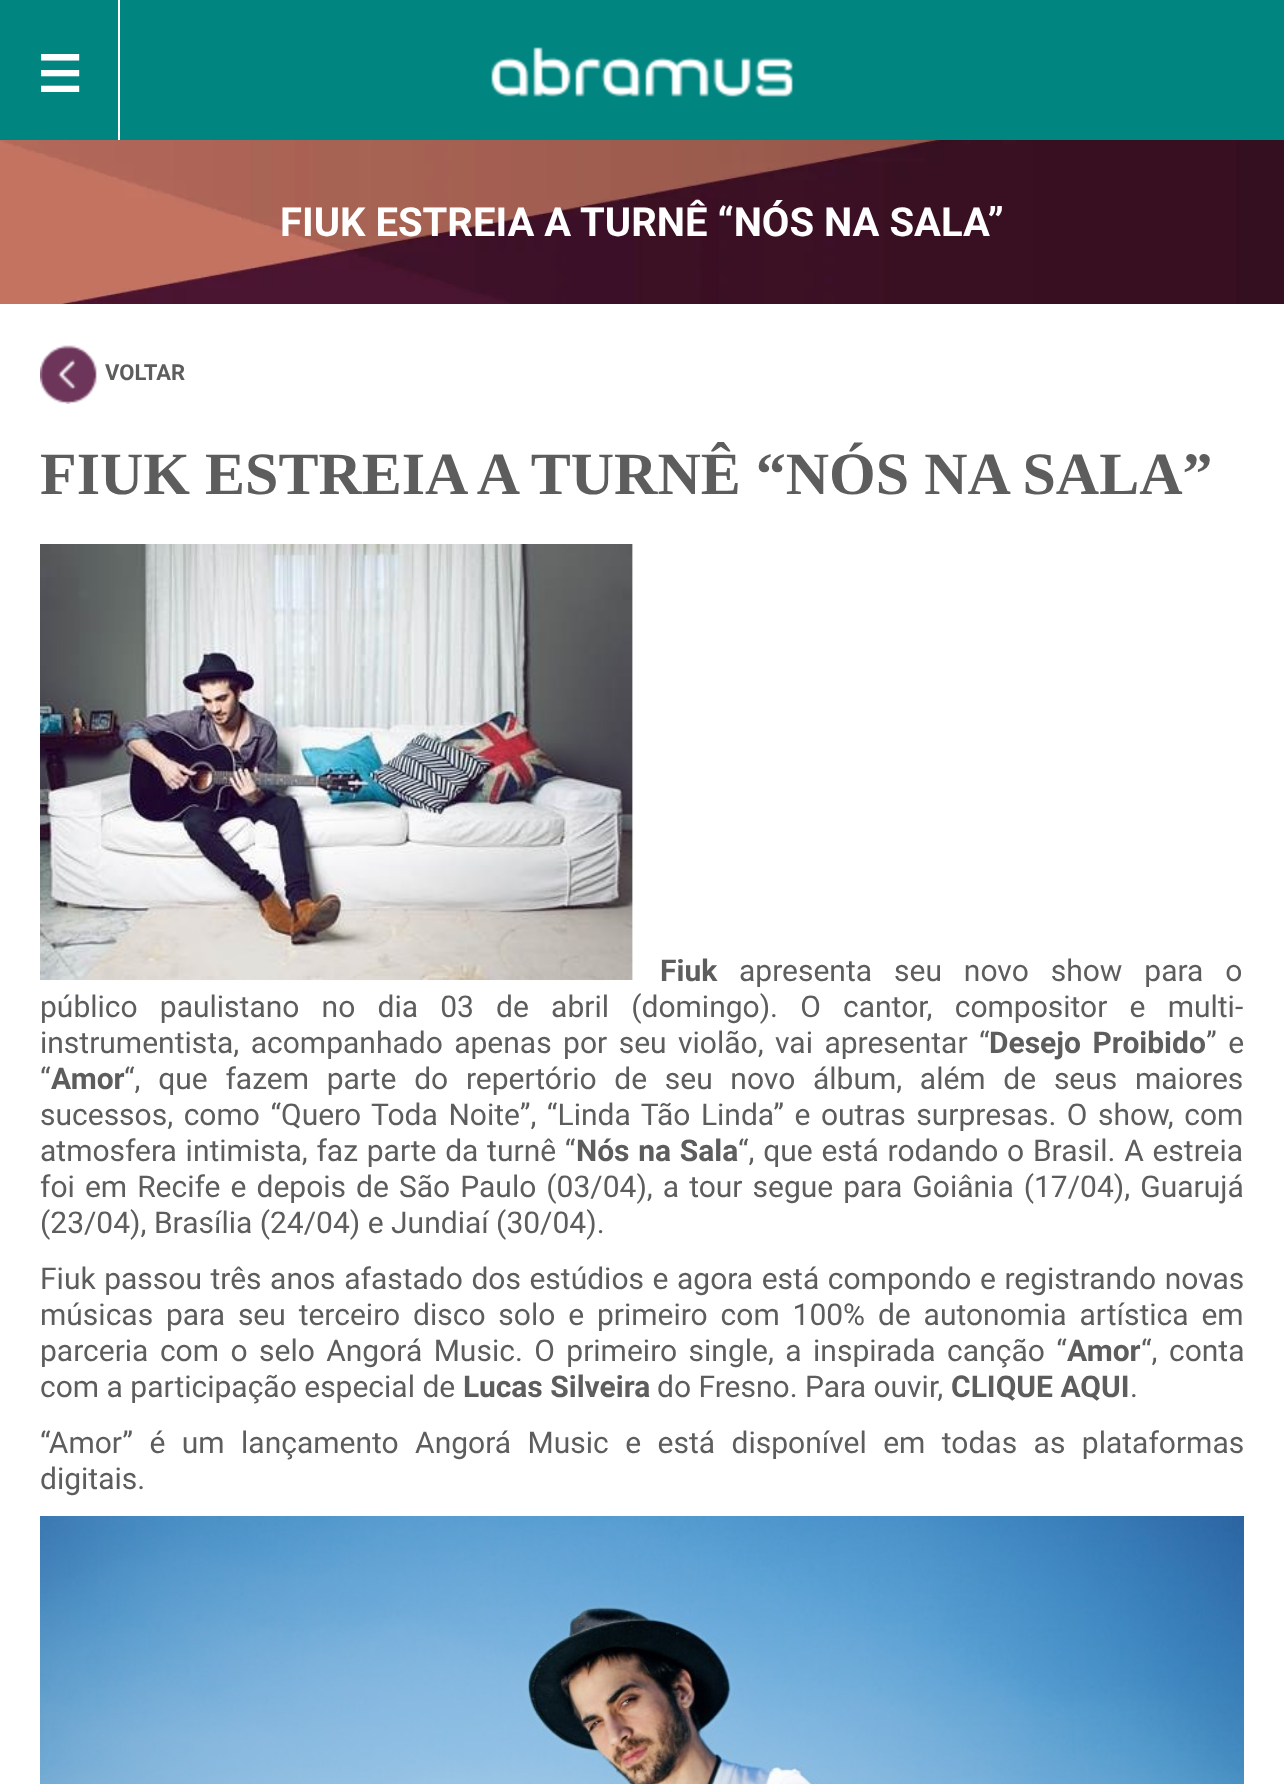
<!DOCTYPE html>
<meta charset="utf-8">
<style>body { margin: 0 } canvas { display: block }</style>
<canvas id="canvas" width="1284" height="1784"></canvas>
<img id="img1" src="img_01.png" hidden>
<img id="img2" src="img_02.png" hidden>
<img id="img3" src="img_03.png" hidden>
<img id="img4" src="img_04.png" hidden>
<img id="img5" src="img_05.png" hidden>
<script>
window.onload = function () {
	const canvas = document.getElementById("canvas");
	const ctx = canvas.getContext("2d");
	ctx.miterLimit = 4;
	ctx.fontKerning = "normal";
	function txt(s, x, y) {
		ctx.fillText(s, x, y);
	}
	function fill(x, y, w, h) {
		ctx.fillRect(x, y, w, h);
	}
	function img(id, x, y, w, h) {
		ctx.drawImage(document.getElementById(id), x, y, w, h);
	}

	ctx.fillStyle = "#FFFFFF";
	fill(0, 0, 1284, 1784);
	img("img1", 0, 140, 1284, 164);
	ctx.fillStyle = "#008580";
	fill(0, 0, 1284, 140);
	img("img2", 491, 47, 302, 50);
	ctx.fillStyle = "#FFFFFF";
	fill(118, 0, 2, 140);
	img("img3", 40, 345, 57, 59);
	img("img4", 40, 544, 594, 436);
	img("img5", 40, 1516, 1204, 268);
	ctx.font = "bold 50px DejaVu Sans";
	txt("☰", 37, 92);
	ctx.font = "bold 40px Roboto";
	txt("FIUK ESTREIA A TURNÊ “NÓS NA SALA”", 280, 236);
	ctx.font = "bold 22px Roboto";
	ctx.fillStyle = "#5D5D5D";
	txt("VOLTAR", 105, 380);
	ctx.font = "bold 60px Liberation Serif";
	txt("FIUK ESTREIA A TURNÊ “NÓS NA SALA”", 40, 494);
	ctx.font = "bold 30px Roboto";
	txt("Fiuk", 660, 981);
	ctx.wordSpacing = "14.5px";
	ctx.font = "30px Roboto";
	txt("apresenta seu novo show para o", 739, 981);
	ctx.wordSpacing = "14.75px";
	txt("público paulistano no dia 03 de abril (domingo). O cantor, compositor e multi-", 40, 1017);
	ctx.wordSpacing = "4px";
	txt("instrumentista, acompanhado apenas por seu violão, vai apresentar “", 40, 1053);
	ctx.font = "bold 30px Roboto";
	txt("Desejo Proibido", 989, 1053);
	ctx.font = "30px Roboto";
	txt("” e", 1206, 1053);
	ctx.wordSpacing = "0px";
	txt("“", 40, 1089);
	ctx.font = "bold 30px Roboto";
	txt("Amor", 51, 1089);
	ctx.wordSpacing = "10.25px";
	ctx.font = "30px Roboto";
	txt("“, que fazem parte do repertório de seu novo álbum, além de seus maiores", 124, 1089);
	ctx.wordSpacing = "3.1px";
	txt("sucessos, como “Quero Toda Noite”, “Linda Tão Linda” e outras surpresas. O show, com", 40, 1125);
	ctx.wordSpacing = "1.25px";
	txt("atmosfera intimista, faz parte da turnê “", 40, 1161);
	ctx.font = "bold 30px Roboto";
	txt("Nós na Sala", 576, 1161);
	ctx.font = "30px Roboto";
	txt("“, que está rodando o Brasil. A estreia", 738, 1161);
	ctx.wordSpacing = "2.6px";
	txt("foi em Recife e depois de São Paulo (03/04), a tour segue para Goiânia (17/04), Guarujá", 40, 1197);
	ctx.wordSpacing = "0px";
	txt("(23/04), Brasília (24/04) e Jundiaí (30/04).", 40, 1233);
	ctx.wordSpacing = "1.1px";
	txt("Fiuk passou três anos afastado dos estúdios e agora está compondo e registrando novas", 40, 1289);
	ctx.wordSpacing = "5.4px";
	txt("músicas para seu terceiro disco solo e primeiro com 100% de autonomia artística em", 40, 1325);
	ctx.wordSpacing = "4px";
	txt("parceria com o selo Angorá Music. O primeiro single, a inspirada canção “", 40, 1361);
	ctx.wordSpacing = "0px";
	ctx.font = "bold 30px Roboto";
	txt("Amor", 1067, 1361);
	ctx.wordSpacing = "4px";
	ctx.font = "30px Roboto";
	txt("“, conta", 1141, 1361);
	ctx.wordSpacing = "0px";
	txt("com a participação especial de", 40, 1397);
	ctx.font = "bold 30px Roboto";
	txt("Lucas Silveira", 463, 1397);
	ctx.font = "30px Roboto";
	txt("do Fresno. Para ouvir,", 657, 1397);
	ctx.font = "bold 30px Roboto";
	txt("CLIQUE AQUI", 951, 1397);
	ctx.font = "30px Roboto";
	txt(".", 1130, 1397);
	ctx.wordSpacing = "9px";
	txt("“Amor” é um lançamento Angorá Music e está disponível em todas as plataformas", 40, 1453);
	ctx.wordSpacing = "0px";
	txt("digitais.", 40, 1489);
};
</script>
